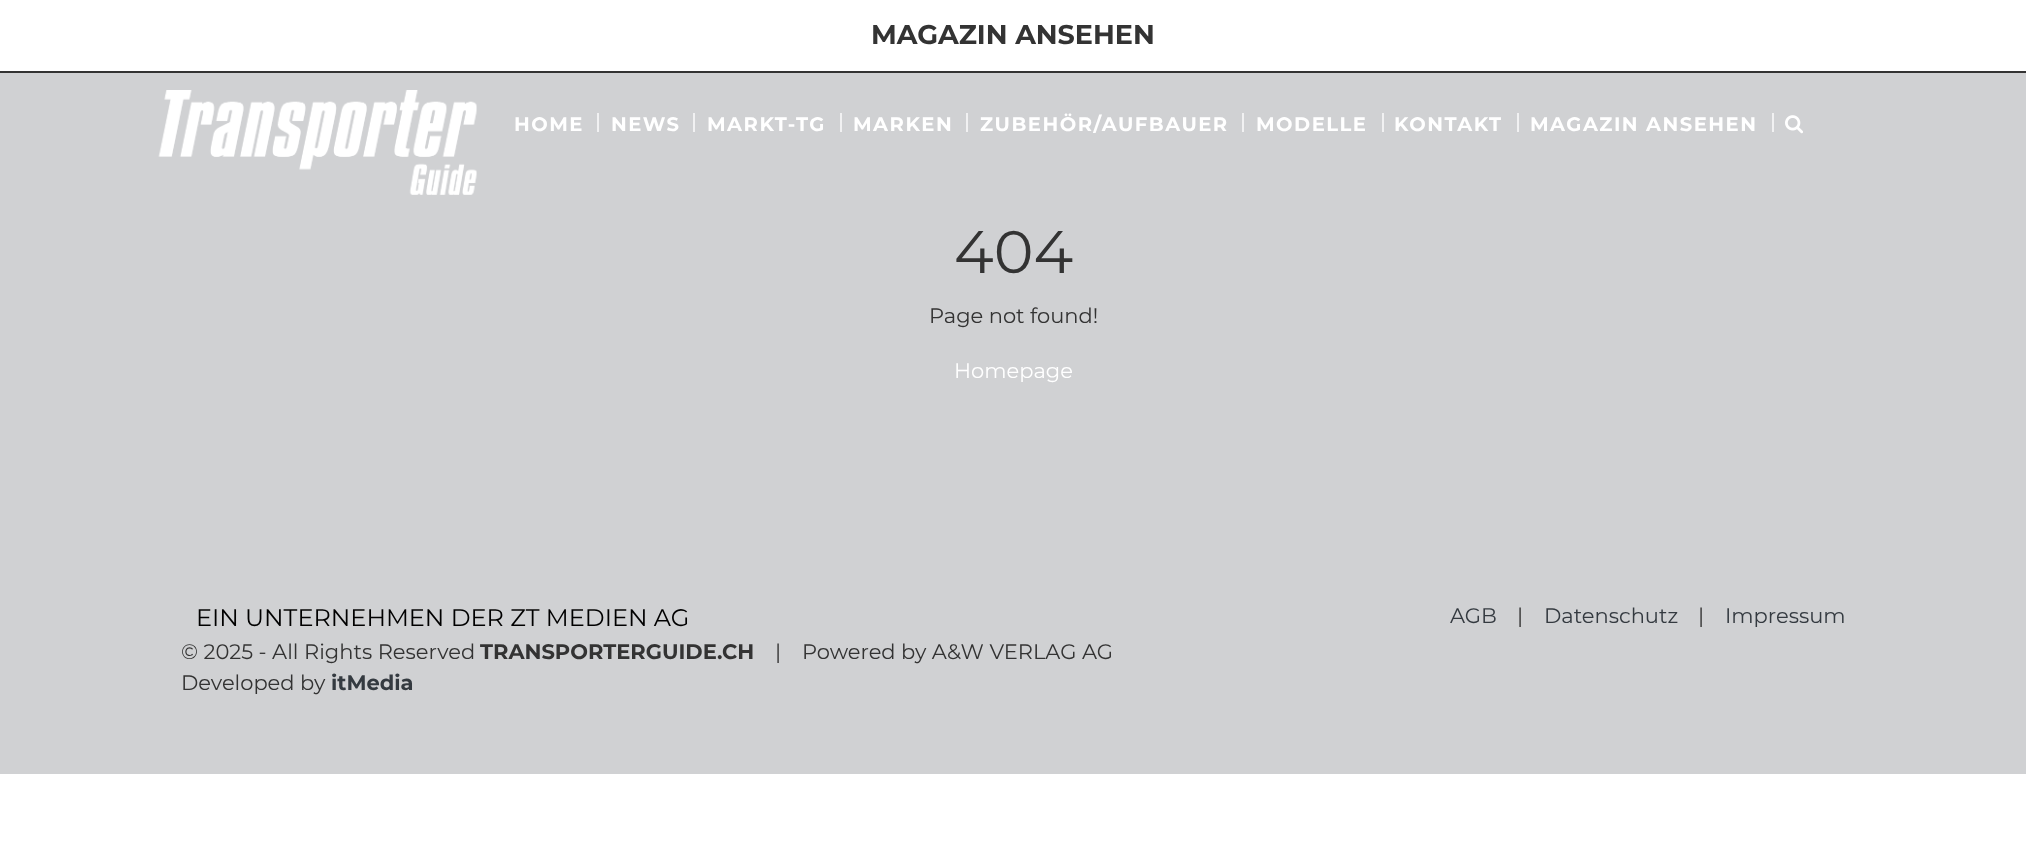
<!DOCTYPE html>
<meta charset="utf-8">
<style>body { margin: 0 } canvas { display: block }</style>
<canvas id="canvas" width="2026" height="848"></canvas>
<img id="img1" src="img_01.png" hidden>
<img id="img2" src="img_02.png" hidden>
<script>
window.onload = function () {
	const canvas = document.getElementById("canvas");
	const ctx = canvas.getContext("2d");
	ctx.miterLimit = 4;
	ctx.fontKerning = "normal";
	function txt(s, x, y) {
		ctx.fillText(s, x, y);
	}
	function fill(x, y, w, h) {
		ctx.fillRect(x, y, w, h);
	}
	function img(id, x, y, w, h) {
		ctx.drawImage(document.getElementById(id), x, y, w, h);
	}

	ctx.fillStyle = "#D0D1D3";
	fill(0, 0, 2026, 848);
	ctx.fillStyle = "#FFFFFF";
	fill(0, 0, 2026, 71);
	ctx.fillStyle = "#333333";
	fill(0, 71, 2026, 2);
	img("img1", 158, 90, 319, 105);
	ctx.fillStyle = "#F1F1F2";
	fill(597, 113, 2, 19);
	fill(693, 113, 2, 19);
	fill(840, 113, 2, 19);
	fill(966, 113, 2, 19);
	fill(1242, 113, 2, 19);
	fill(1382, 113, 2, 19);
	fill(1517, 113, 2, 19);
	fill(1772, 113, 2, 19);
	img("img2", 1785, 115, 18, 19);
	ctx.fillStyle = "#FFFFFF";
	fill(0, 774, 2026, 74);
	ctx.font = "bold 27px Montserrat";
	ctx.fillStyle = "#333333";
	txt("MAGAZIN ANSEHEN", 871, 44);
	ctx.letterSpacing = "1.5px";
	ctx.font = "bold 19.5px Montserrat";
	ctx.fillStyle = "#FFFFFF";
	txt("HOME", 514, 131);
	txt("NEWS", 611, 131);
	txt("MARKT-TG", 707, 131);
	txt("MARKEN", 853, 131);
	txt("ZUBEHÖR/AUFBAUER", 980, 131);
	txt("MODELLE", 1256, 131);
	txt("KONTAKT", 1394, 131);
	txt("MAGAZIN ANSEHEN", 1530, 131);
	ctx.letterSpacing = "0px";
	ctx.font = "60px Montserrat";
	ctx.fillStyle = "#333333";
	txt("404", 954, 273);
	ctx.font = "21px Montserrat";
	txt("Page not found!", 929, 323);
	ctx.fillStyle = "#FFFFFF";
	txt("Homepage", 954, 378);
	ctx.font = "24px Montserrat";
	ctx.fillStyle = "#000000";
	txt("EIN UNTERNEHMEN DER ZT MEDIEN AG", 196, 626);
	ctx.font = "21px Montserrat";
	ctx.fillStyle = "#333333";
	txt("© 2025 - All Rights Reserved", 181, 659);
	ctx.font = "bold 21px Montserrat";
	txt("TRANSPORTERGUIDE.CH", 480, 659);
	ctx.font = "21px Montserrat";
	txt("|", 775, 659);
	txt("Powered by A&W VERLAG AG", 802, 659);
	txt("Developed by", 181, 690);
	ctx.font = "bold 21px Montserrat";
	ctx.fillStyle = "#343A40";
	txt("itMedia", 331, 690);
	ctx.font = "21px Montserrat";
	txt("AGB", 1450, 623);
	ctx.fillStyle = "#333333";
	txt("|", 1517, 623);
	ctx.fillStyle = "#343A40";
	txt("Datenschutz", 1544, 623);
	ctx.fillStyle = "#333333";
	txt("|", 1698, 623);
	ctx.fillStyle = "#343A40";
	txt("Impressum", 1725, 623);
};
</script>
